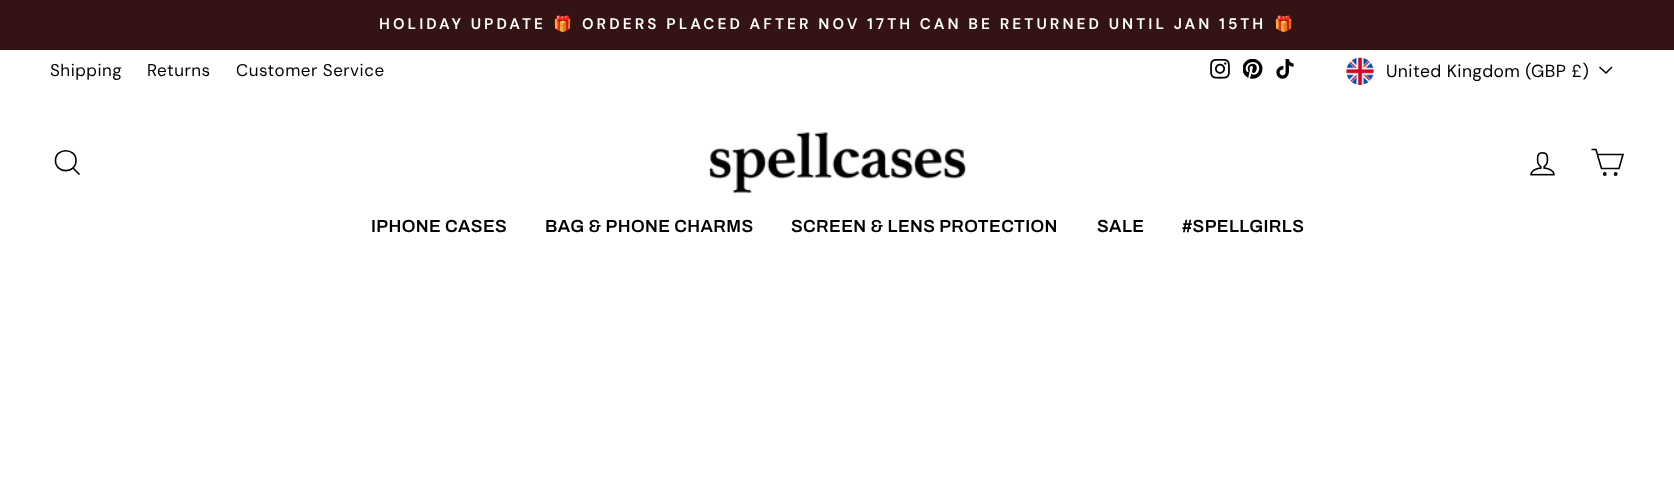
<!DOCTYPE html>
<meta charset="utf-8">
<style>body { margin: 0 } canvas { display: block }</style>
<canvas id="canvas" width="1674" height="478"></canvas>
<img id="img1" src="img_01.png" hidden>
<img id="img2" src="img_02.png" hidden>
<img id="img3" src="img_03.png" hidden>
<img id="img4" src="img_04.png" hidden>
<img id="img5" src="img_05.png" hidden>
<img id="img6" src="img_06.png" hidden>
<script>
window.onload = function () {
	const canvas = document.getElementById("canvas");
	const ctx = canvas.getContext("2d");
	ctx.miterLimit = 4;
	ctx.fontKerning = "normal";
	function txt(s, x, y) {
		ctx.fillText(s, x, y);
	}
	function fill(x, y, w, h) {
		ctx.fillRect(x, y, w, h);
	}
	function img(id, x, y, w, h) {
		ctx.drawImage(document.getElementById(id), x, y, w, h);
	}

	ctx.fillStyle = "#FFFFFF";
	fill(0, 0, 1674, 478);
	ctx.fillStyle = "#331313";
	fill(0, 0, 1674, 50);
	img("img1", 1210, 59, 20, 20);
	img("img2", 1243, 59, 20, 20);
	img("img3", 1276, 59, 18, 20);
	img("img4", 1346, 57, 28, 28);
	ctx.beginPath();
	ctx.moveTo(1599.5, 67);
	ctx.lineTo(1606, 73);
	ctx.lineTo(1612, 67);
	ctx.strokeStyle = "#000000";
	ctx.lineWidth = 1.5;
	ctx.stroke();
	ctx.fillStyle = "rgba(0, 0, 0, 0.2)";
	ctx.filter = "blur(0.5px)";
	ctx.beginPath();
	ctx.rect(0, 91, 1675, 179);
	ctx.fill();
	ctx.filter = "none";
	ctx.fillStyle = "#FFFFFF";
	fill(0, 91, 1674, 179);
	ctx.beginPath();
	ctx.moveTo(76, 160.5);
	ctx.bezierCurveTo(76, 174, 55.5, 174, 55.5, 160.5);
	ctx.bezierCurveTo(55.5, 147.5, 76, 147.5, 76, 160.5);
	ctx.closePath();
	ctx.moveTo(79.5, 174.5);
	ctx.lineTo(73, 168);
	ctx.lineWidth = 1.6;
	ctx.stroke();
	img("img5", 709, 132, 257, 61);
	img("img6", 1530, 152, 25, 24);
	ctx.beginPath();
	ctx.moveTo(1597.5, 154.5);
	ctx.lineTo(1623, 154.5);
	ctx.lineTo(1619, 168.5);
	ctx.lineTo(1601.5, 168.5);
	ctx.lineTo(1596, 149.5);
	ctx.lineTo(1591.5, 149.5);
	ctx.stroke();
	ctx.beginPath();
	ctx.arc(1604.8, 174, 1.1, 0, Math.PI * 2);
	ctx.stroke();
	ctx.beginPath();
	ctx.arc(1615.7, 174, 1.1, 0, Math.PI * 2);
	ctx.stroke();
	ctx.letterSpacing = "3.05px";
	ctx.wordSpacing = "-0.25px";
	ctx.font = "600 15.3px DM Sans";
	txt("HOLIDAY UPDATE", 379, 29);
	ctx.wordSpacing = "0px";
	ctx.font = "bold 15.3px Noto Color Emoji";
	txt("🎁", 553, 29);
	ctx.wordSpacing = "-0.25px";
	ctx.font = "600 15.3px DM Sans";
	txt("ORDERS PLACED AFTER NOV 17TH CAN BE RETURNED UNTIL JAN 15TH", 582, 29);
	ctx.wordSpacing = "0px";
	ctx.font = "bold 15.3px Noto Color Emoji";
	txt("🎁", 1274, 29);
	ctx.letterSpacing = "0.5px";
	ctx.font = "17px DM Sans";
	ctx.fillStyle = "#000000";
	txt("Shipping", 50, 76);
	txt("Returns", 147, 76);
	txt("Customer Service", 236, 76);
	ctx.letterSpacing = "0.4px";
	ctx.font = "17.5px 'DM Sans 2'";
	txt("United Kingdom (GBP £)", 1386, 77);
	ctx.font = "600 17.5px Archivo";
	txt("IPHONE CASES", 371, 232);
	txt("BAG & PHONE CHARMS", 545, 232);
	txt("SCREEN & LENS PROTECTION", 791, 232);
	txt("SALE", 1097, 232);
	txt("#SPELLGIRLS", 1182, 232);
};
</script>
